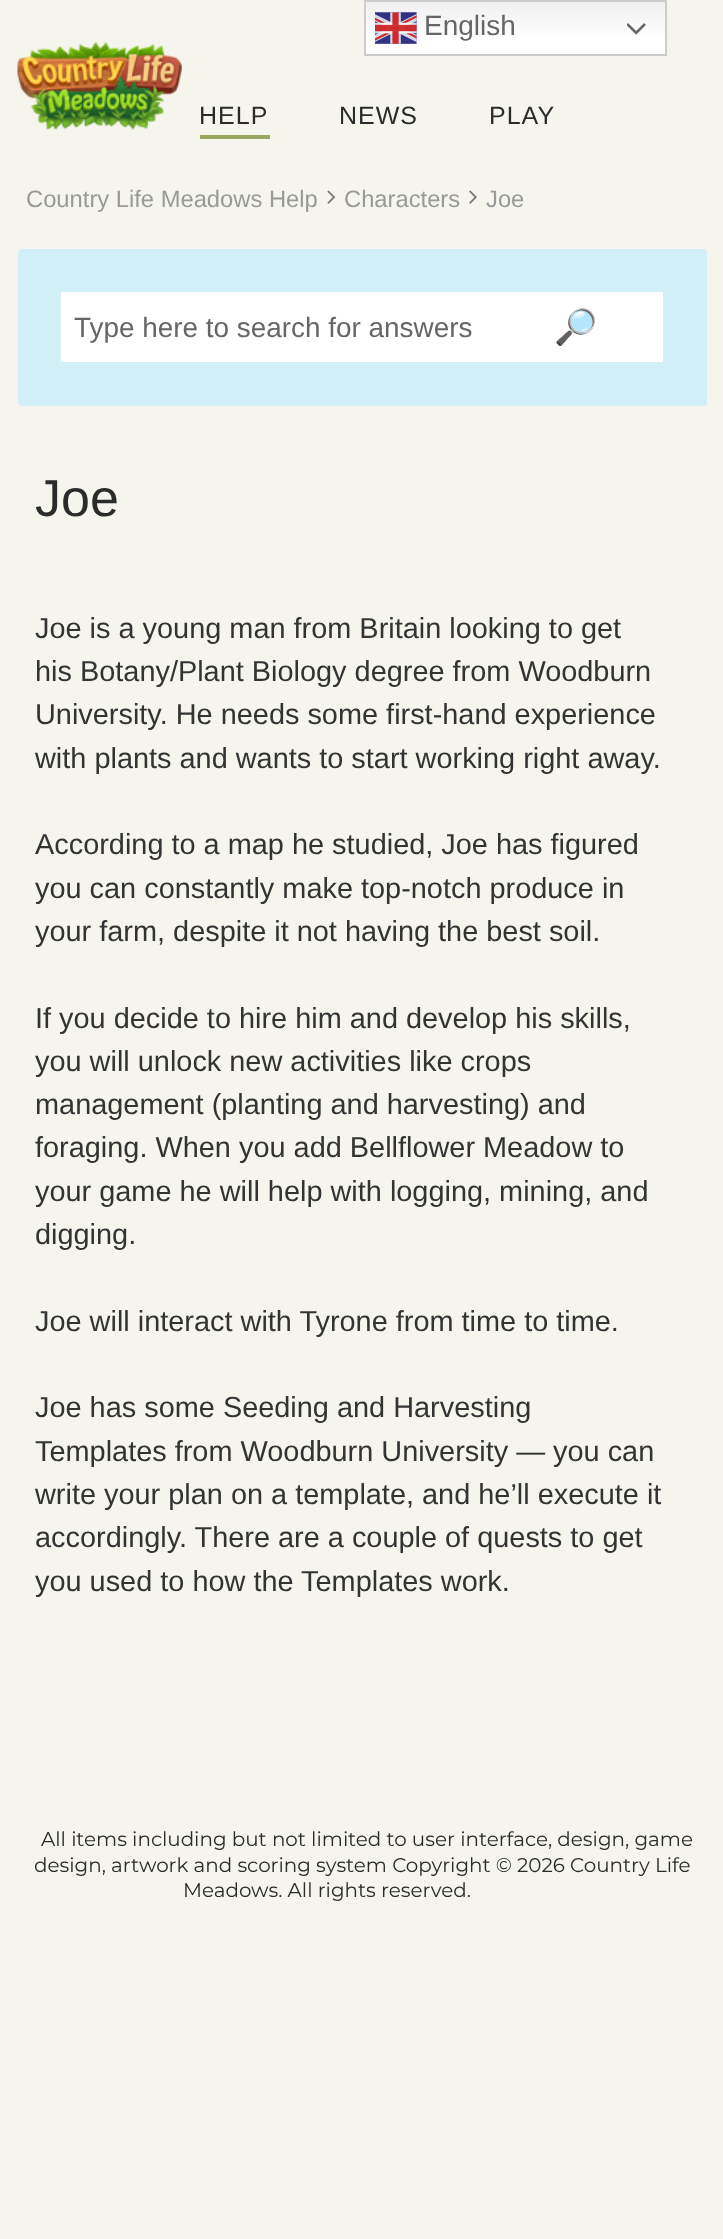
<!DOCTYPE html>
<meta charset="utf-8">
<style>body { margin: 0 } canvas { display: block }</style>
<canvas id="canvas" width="723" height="2239"></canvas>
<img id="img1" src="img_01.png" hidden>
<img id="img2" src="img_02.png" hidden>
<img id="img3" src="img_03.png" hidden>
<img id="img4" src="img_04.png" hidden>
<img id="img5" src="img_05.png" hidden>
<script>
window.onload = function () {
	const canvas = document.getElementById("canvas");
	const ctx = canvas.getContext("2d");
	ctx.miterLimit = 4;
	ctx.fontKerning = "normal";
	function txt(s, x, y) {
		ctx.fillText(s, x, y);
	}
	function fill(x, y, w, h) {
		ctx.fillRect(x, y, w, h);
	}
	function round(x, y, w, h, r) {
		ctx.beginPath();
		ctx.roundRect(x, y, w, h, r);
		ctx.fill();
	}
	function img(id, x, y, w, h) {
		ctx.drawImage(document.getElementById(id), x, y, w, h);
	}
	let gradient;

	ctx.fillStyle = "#F5F5ED";
	fill(0, 0, 723, 2239);
	gradient = ctx.createLinearGradient(515, 0, 515, 56);
	gradient.addColorStop(0, "#EFEFEF");
	gradient.addColorStop(0.7, "#FFFFFF");
	ctx.fillStyle = gradient;
	fill(366, 2, 299, 52);
	ctx.strokeStyle = "#CCCCCC";
	ctx.lineWidth = 2;
	ctx.strokeRect(365, 1, 301, 54);
	img("img1", 375, 12, 42, 32);
	img("img2", 627, 23, 19, 12);
	img("img3", 17, 42, 165, 88);
	ctx.fillStyle = "#99A960";
	fill(200, 135, 70, 4);
	img("img4", 327, 190, 9, 14);
	img("img5", 469, 190, 8, 14);
	ctx.fillStyle = "#D1EFF6";
	round(18, 249, 689, 157, 4);
	ctx.fillStyle = "#FFFFFF";
	fill(61, 292, 602, 70);
	ctx.font = "28px Liberation Sans";
	ctx.fillStyle = "#666666";
	txt("English", 424, 35);
	ctx.letterSpacing = "1px";
	ctx.font = "25px Liberation Sans";
	ctx.fillStyle = "#2B2B2B";
	txt("HELP", 199, 124);
	txt("NEWS", 339, 124);
	txt("PLAY", 489, 124);
	ctx.letterSpacing = "0px";
	ctx.font = "23.75px Liberation Sans";
	ctx.fillStyle = "#999999";
	txt("Country Life Meadows Help", 26, 207);
	txt("Characters", 344, 207);
	txt("Joe", 486, 207);
	ctx.font = "27.9px Liberation Sans";
	ctx.fillStyle = "#666666";
	txt("Type here to search for answers", 74, 337);
	ctx.font = "bold 35px Noto Color Emoji";
	ctx.fillStyle = "#333333";
	txt("🔎", 554, 339);
	ctx.font = "52px Liberation Sans";
	ctx.fillStyle = "#2B2B2B";
	txt("Joe", 35, 516);
	ctx.font = "28.9px Liberation Sans";
	ctx.fillStyle = "#333333";
	txt("Joe is a young man from Britain looking to get", 35, 638);
	txt("his Botany/Plant Biology degree from Woodburn", 35, 681);
	txt("University. He needs some first-hand experience", 35, 724);
	txt("with plants and wants to start working right away.", 35, 768);
	txt("According to a map he studied, Joe has figured", 35, 854);
	txt("you can constantly make top-notch produce in", 35, 898);
	txt("your farm, despite it not having the best soil.", 35, 941);
	txt("If you decide to hire him and develop his skills,", 35, 1028);
	txt("you will unlock new activities like crops", 35, 1071);
	txt("management (planting and harvesting) and", 35, 1114);
	txt("foraging. When you add Bellflower Meadow to", 35, 1157);
	txt("your game he will help with logging, mining, and", 35, 1201);
	txt("digging.", 35, 1244);
	txt("Joe will interact with Tyrone from time to time.", 35, 1331);
	txt("Joe has some Seeding and Harvesting", 35, 1417);
	txt("Templates from Woodburn University — you can", 35, 1461);
	txt("write your plan on a template, and he’ll execute it", 35, 1504);
	txt("accordingly. There are a couple of quests to get", 35, 1547);
	txt("you used to how the Templates work.", 35, 1591);
	ctx.font = "100 19.9px Montserrat";
	ctx.fillStyle = "#2B2B2B";
	txt("All items including but not limited to user interface, design, game", 41, 1846);
	txt("design, artwork and scoring system Copyright © 2026 Country Life", 34, 1872);
	txt("Meadows. All rights reserved.", 183, 1897);
};
</script>
